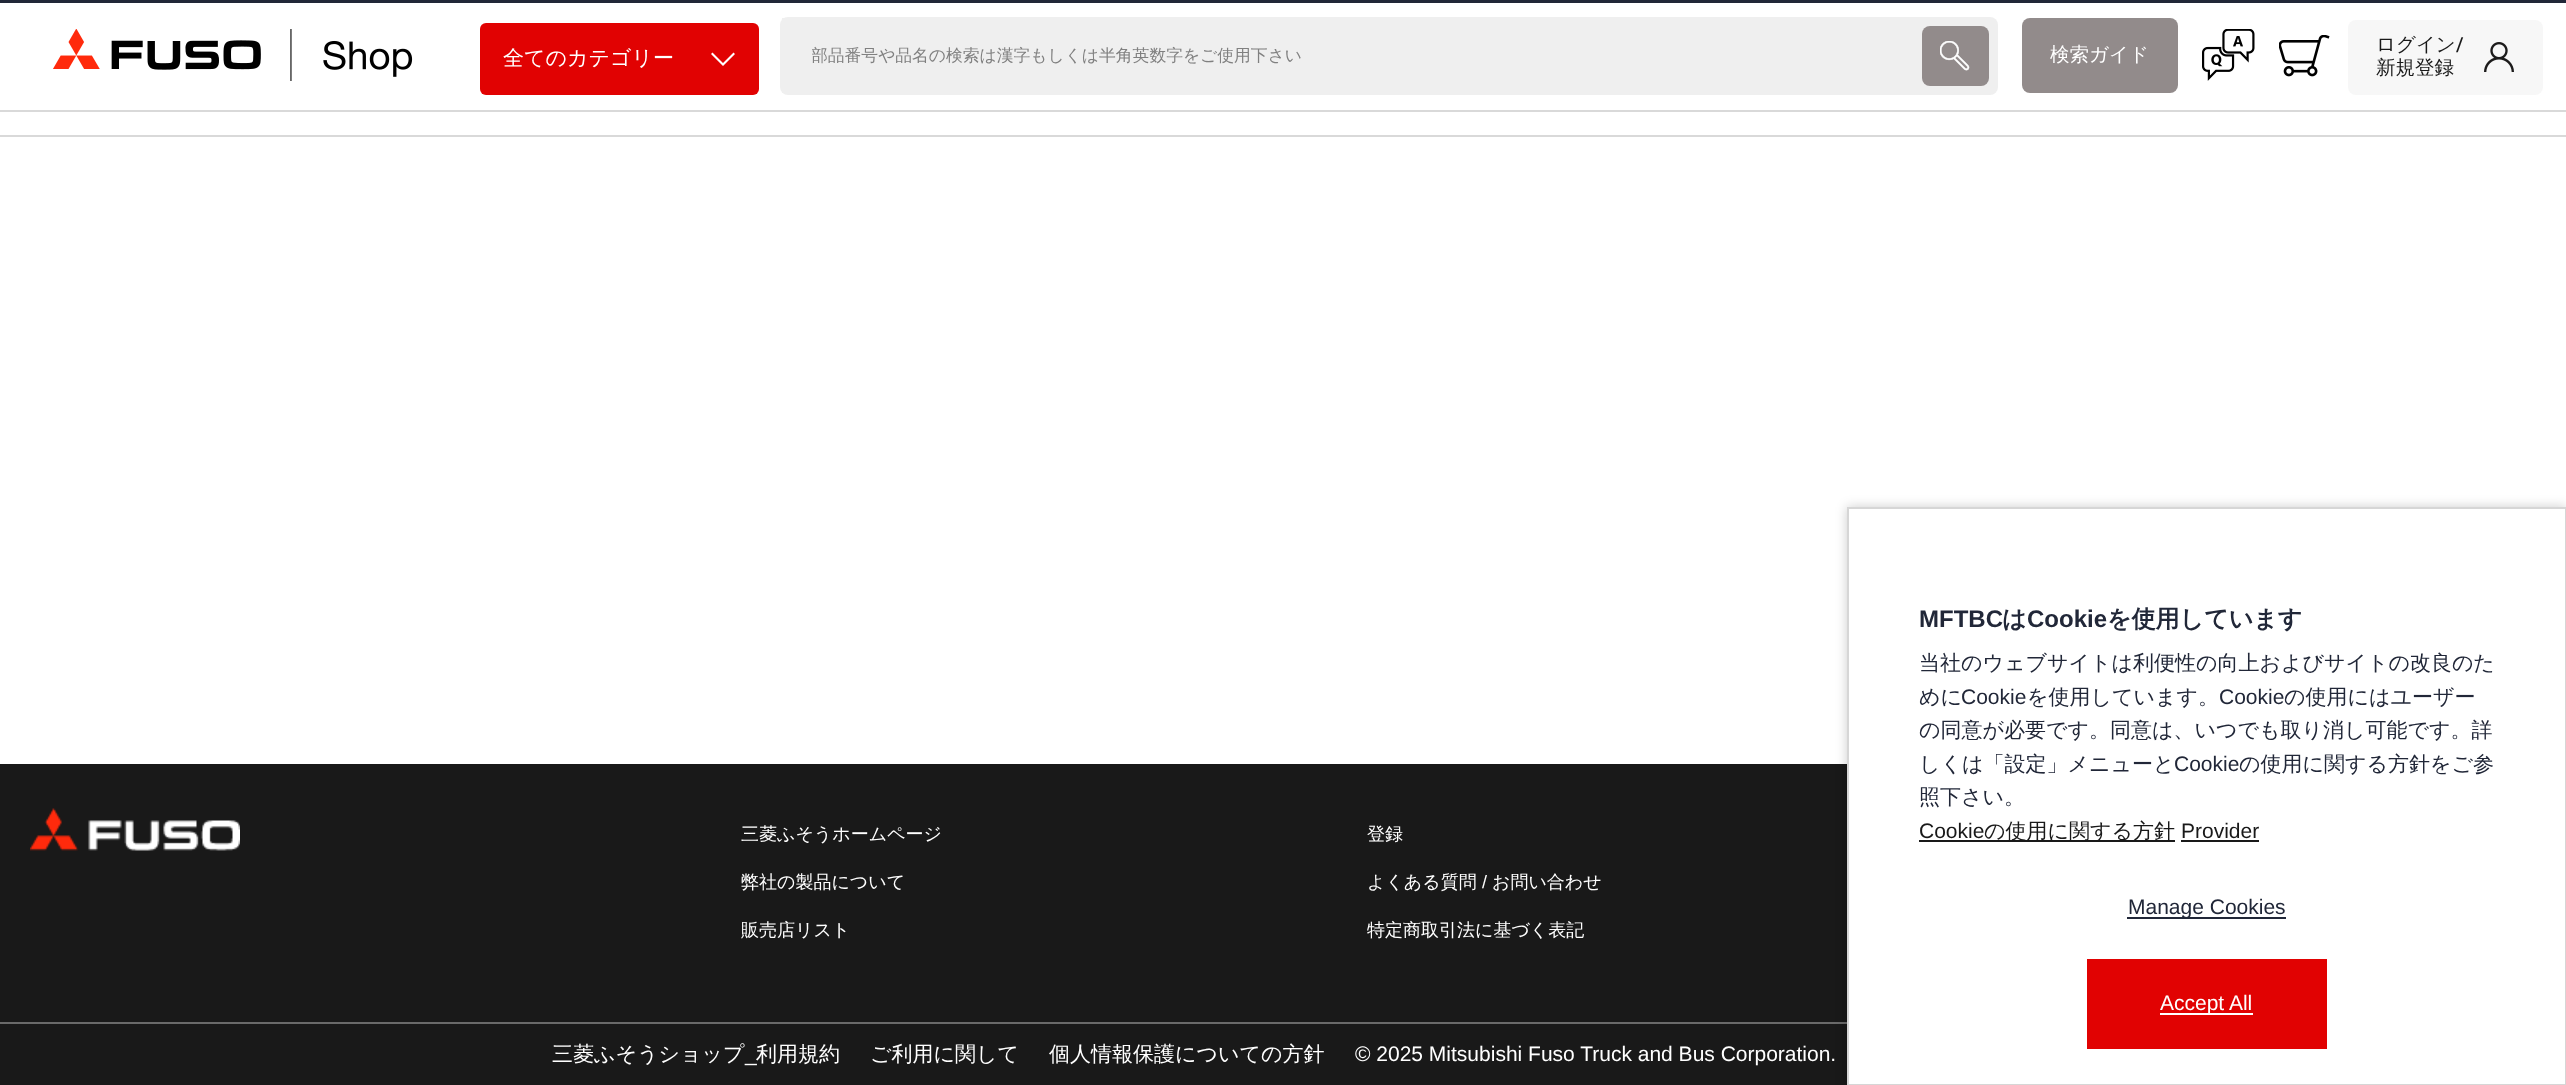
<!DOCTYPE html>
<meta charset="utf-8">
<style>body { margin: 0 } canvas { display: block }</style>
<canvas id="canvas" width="2566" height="1085"></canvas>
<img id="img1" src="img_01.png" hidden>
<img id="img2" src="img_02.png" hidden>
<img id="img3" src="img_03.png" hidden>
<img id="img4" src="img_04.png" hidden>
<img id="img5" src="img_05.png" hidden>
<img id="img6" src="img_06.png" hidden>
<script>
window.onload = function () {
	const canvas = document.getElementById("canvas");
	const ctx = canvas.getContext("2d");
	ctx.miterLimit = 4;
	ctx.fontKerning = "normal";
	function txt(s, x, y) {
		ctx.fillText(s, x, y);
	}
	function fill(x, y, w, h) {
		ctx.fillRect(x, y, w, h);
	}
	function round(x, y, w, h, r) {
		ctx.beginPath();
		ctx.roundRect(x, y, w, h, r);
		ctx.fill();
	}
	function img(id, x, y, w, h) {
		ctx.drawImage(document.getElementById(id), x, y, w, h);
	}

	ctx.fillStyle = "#FFFFFF";
	fill(0, 0, 2566, 1085);
	ctx.fillStyle = "#212738";
	fill(0, 0, 2566, 3);
	ctx.fillStyle = "#D9D9D9";
	fill(0, 110, 2566, 2);
	img("img1", 53, 29, 360, 52);
	ctx.fillStyle = "#E10202";
	round(480, 23, 279, 72, 6);
	ctx.fillStyle = "#FFFFFF";
	ctx.beginPath();
	ctx.moveTo(711, 54);
	ctx.lineTo(712.5, 52.5);
	ctx.lineTo(723, 63);
	ctx.lineTo(733.5, 52.5);
	ctx.lineTo(735, 54);
	ctx.lineTo(723, 66);
	ctx.closePath();
	ctx.fill();
	ctx.fillStyle = "#EFEFEF";
	round(780, 17, 1218, 78, 8);
	fill(782, 18, 2, 75);
	ctx.fillStyle = "#928B8B";
	round(1922, 26, 67, 60, 8);
	img("img2", 1940, 41, 30, 30);
	round(2022, 18, 156, 75, 8);
	img("img3", 2202, 29, 53, 52);
	img("img4", 2279, 35, 51, 42);
	ctx.fillStyle = "#F7F7F7";
	round(2348, 20, 195, 75, 8);
	img("img5", 2484, 42, 30, 30);
	ctx.fillStyle = "#D9D9D9";
	fill(0, 135, 2566, 2);
	ctx.fillStyle = "#191919";
	fill(0, 764, 1847, 321);
	img("img6", 30, 808, 210, 43);
	ctx.fillStyle = "#6A6A6A";
	fill(0, 1022, 1847, 2);
	ctx.fillStyle = "rgba(0, 0, 0, 0.2)";
	ctx.filter = "blur(6px)";
	ctx.beginPath();
	ctx.rect(1847, 507, 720, 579);
	ctx.fill();
	ctx.filter = "none";
	ctx.fillStyle = "#FFFFFF";
	ctx.beginPath();
	ctx.rect(1848, 508, 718, 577);
	ctx.fill();
	ctx.strokeStyle = "#D6D6D6";
	ctx.lineWidth = 2;
	ctx.stroke();
	ctx.fillStyle = "#191919";
	fill(1919, 840, 256, 2);
	fill(2181, 840, 78, 2);
	ctx.fillStyle = "#212738";
	fill(2127, 917, 159, 2);
	ctx.fillStyle = "#E10202";
	fill(2087, 959, 240, 90);
	ctx.fillStyle = "#FFFFFF";
	fill(2160, 1013, 93, 2);
	ctx.font = "500 21px WenQuanYi Zen Hei";
	txt("全てのカテゴリー", 503, 65);
	ctx.save();
	ctx.beginPath();
	ctx.rect(812, 45, 1099, 23);
	ctx.clip();
	ctx.font = "500 16.8px WenQuanYi Zen Hei";
	ctx.fillStyle = "#808080";
	txt("部品番号や品名の検索は漢字もしくは半角英数字をご使用下さい", 811, 61);
	ctx.restore();
	ctx.font = "500 19.5px WenQuanYi Zen Hei";
	txt("検索ガイド", 2050, 61);
	ctx.fillStyle = "#191919";
	txt("ログイン", 2376, 51);
	ctx.font = "500 19.5px Roboto";
	txt("/", 2456, 51);
	ctx.font = "500 19.5px WenQuanYi Zen Hei";
	txt("新規登録", 2376, 74);
	ctx.font = "500 18px WenQuanYi Zen Hei";
	ctx.fillStyle = "#FFFFFF";
	txt("三菱ふそうホームページ", 741, 840);
	txt("弊社の製品について", 741, 888);
	txt("販売店リスト", 741, 936);
	txt("登録", 1367, 840);
	txt("よくある質問", 1367, 888);
	ctx.font = "18px Liberation Sans";
	txt("/", 1482, 888);
	ctx.font = "500 18px WenQuanYi Zen Hei";
	txt("お問い合わせ", 1492, 888);
	txt("特定商取引法に基づく表記", 1367, 936);
	ctx.font = "500 21px WenQuanYi Zen Hei";
	txt("三菱ふそうショップ", 552, 1061);
	ctx.font = "21px Liberation Sans";
	txt("_", 745, 1061);
	ctx.font = "500 21px WenQuanYi Zen Hei";
	txt("利用規約", 756, 1061);
	txt("ご利用に関して", 870, 1061);
	txt("個人情報保護についての方針", 1049, 1061);
	ctx.font = "21px Liberation Sans";
	txt("© 2025 Mitsubishi Fuso Truck and Bus Corporation.", 1355, 1061);
	ctx.font = "bold 24px Liberation Sans";
	ctx.fillStyle = "#212738";
	txt("MFTBC", 1919, 627);
	ctx.font = "bold 24px WenQuanYi Zen Hei";
	txt("は", 2002, 627);
	ctx.font = "bold 24px Liberation Sans";
	txt("Cookie", 2027, 627);
	ctx.font = "bold 24px WenQuanYi Zen Hei";
	txt("を使用しています", 2107, 627);
	ctx.font = "500 21px WenQuanYi Zen Hei";
	txt("当社のウェブサイトは利便性の向上およびサイトの改良のた", 1919, 670);
	txt("めに", 1919, 704);
	ctx.font = "21px Liberation Sans";
	txt("Cookie", 1961, 704);
	ctx.font = "500 21px WenQuanYi Zen Hei";
	txt("を使用しています。", 2027, 704);
	ctx.font = "21px Liberation Sans";
	txt("Cookie", 2219, 704);
	ctx.font = "500 21px WenQuanYi Zen Hei";
	txt("の使用にはユーザー", 2284, 704);
	txt("の同意が必要です。同意は、いつでも取り消し可能です。詳", 1919, 737);
	txt("しくは「設定」メニューと", 1919, 771);
	ctx.font = "21px Liberation Sans";
	txt("Cookie", 2174, 771);
	ctx.font = "500 21px WenQuanYi Zen Hei";
	txt("の使用に関する方針をご参", 2239, 771);
	txt("照下さい。", 1919, 804);
	ctx.font = "21px Liberation Sans";
	ctx.fillStyle = "#191919";
	txt("Cookie", 1919, 838);
	ctx.font = "500 21px WenQuanYi Zen Hei";
	txt("の使用に関する方針", 1984, 838);
	ctx.font = "21px Liberation Sans";
	txt("Provider", 2181, 838);
	ctx.fillStyle = "#212738";
	txt("Manage Cookies", 2128, 914);
	ctx.fillStyle = "#FFFFFF";
	txt("Accept All", 2160, 1010);
};
</script>
